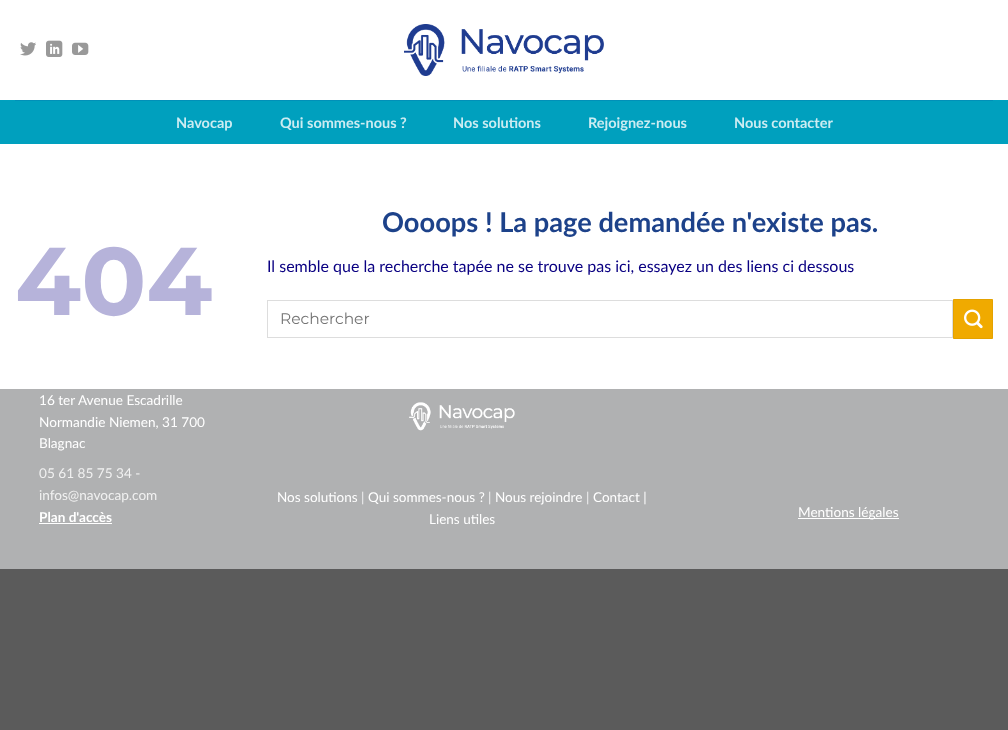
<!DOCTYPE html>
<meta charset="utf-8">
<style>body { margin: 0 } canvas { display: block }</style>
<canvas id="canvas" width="1008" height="730"></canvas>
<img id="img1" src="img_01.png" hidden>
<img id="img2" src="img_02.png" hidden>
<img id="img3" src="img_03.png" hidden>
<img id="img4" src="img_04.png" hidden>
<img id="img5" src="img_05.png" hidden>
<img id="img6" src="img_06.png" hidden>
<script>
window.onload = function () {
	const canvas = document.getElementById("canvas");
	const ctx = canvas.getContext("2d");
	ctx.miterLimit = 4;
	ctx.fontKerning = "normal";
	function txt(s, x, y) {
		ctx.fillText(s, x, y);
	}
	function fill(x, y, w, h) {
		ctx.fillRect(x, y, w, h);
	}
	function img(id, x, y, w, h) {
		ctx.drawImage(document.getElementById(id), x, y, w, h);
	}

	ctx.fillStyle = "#5B5B5B";
	fill(0, 0, 1008, 730);
	ctx.fillStyle = "#FFFFFF";
	fill(0, 0, 1008, 389);
	img("img1", 20, 42, 16, 14);
	img("img2", 46, 40, 17, 17);
	img("img3", 72, 42, 17, 13);
	img("img4", 404, 24, 200, 52);
	ctx.fillStyle = "#00A0BE";
	fill(0, 100, 1008, 44);
	ctx.fillStyle = "#0190B8";
	fill(15, 100, 978, 1);
	ctx.strokeStyle = "#DDDDDD";
	ctx.strokeRect(267.5, 300.5, 685, 37);
	ctx.fillStyle = "#F0AA00";
	ctx.beginPath();
	ctx.rect(953.5, 299.5, 39, 39);
	ctx.fill();
	ctx.strokeStyle = "#E4A200";
	ctx.stroke();
	img("img5", 964, 309, 19, 20);
	ctx.fillStyle = "#B0B1B2";
	fill(0, 389, 1008, 180);
	ctx.fillStyle = "#FFFFFF";
	fill(39, 523, 73, 1);
	img("img6", 409, 402, 106, 29);
	fill(798, 518, 101, 1);
	ctx.font = "bold 14.5px Lato";
	ctx.fillStyle = "#CCECF2";
	txt("Navocap", 176, 128);
	txt("Qui sommes-nous ?", 280, 128);
	txt("Nos solutions", 453, 128);
	txt("Rejoignez-nous", 588, 128);
	txt("Nous contacter", 734, 128);
	ctx.font = "bold 96px Montserrat";
	ctx.fillStyle = "#B6B3DA";
	txt("404", 15, 315);
	ctx.font = "bold 27.25px Lato";
	ctx.fillStyle = "#1D428A";
	txt("Oooops ! La page demandée n'existe pas.", 382, 232);
	ctx.font = "16px Lato";
	ctx.fillStyle = "#0A0082";
	txt("Il semble que la recherche tapée ne se trouve pas ici, essayez un des liens ci dessous", 267, 272);
	ctx.font = "15.5px Montserrat";
	ctx.fillStyle = "#757575";
	txt("Rechercher", 280, 324);
	ctx.font = "13.6px Lato";
	ctx.fillStyle = "#FFFFFF";
	txt("16 ter Avenue Escadrille", 39, 405);
	txt("Normandie Niemen, 31 700", 39, 427);
	txt("Blagnac", 39, 448);
	ctx.fillStyle = "#F1F1F1";
	txt("05 61 85 75 34 -", 39, 478);
	txt("infos@navocap.com", 39, 500);
	ctx.font = "bold 13.6px Lato";
	ctx.fillStyle = "#FFFFFF";
	txt("Plan d'accès", 39, 522);
	ctx.font = "13.5px Lato";
	txt("Nos solutions", 277, 502);
	ctx.fillStyle = "#F1F1F1";
	txt("|", 361, 502);
	ctx.fillStyle = "#FFFFFF";
	txt("Qui sommes-nous ?", 368, 502);
	ctx.fillStyle = "#F1F1F1";
	txt("|", 488, 502);
	ctx.fillStyle = "#FFFFFF";
	txt("Nous rejoindre", 495, 502);
	ctx.fillStyle = "#F1F1F1";
	txt("|", 586, 502);
	ctx.fillStyle = "#FFFFFF";
	txt("Contact |", 593, 502);
	txt("Liens utiles", 429, 524);
	ctx.font = "13.6px Lato";
	txt("Mentions légales", 798, 517);
};
</script>
